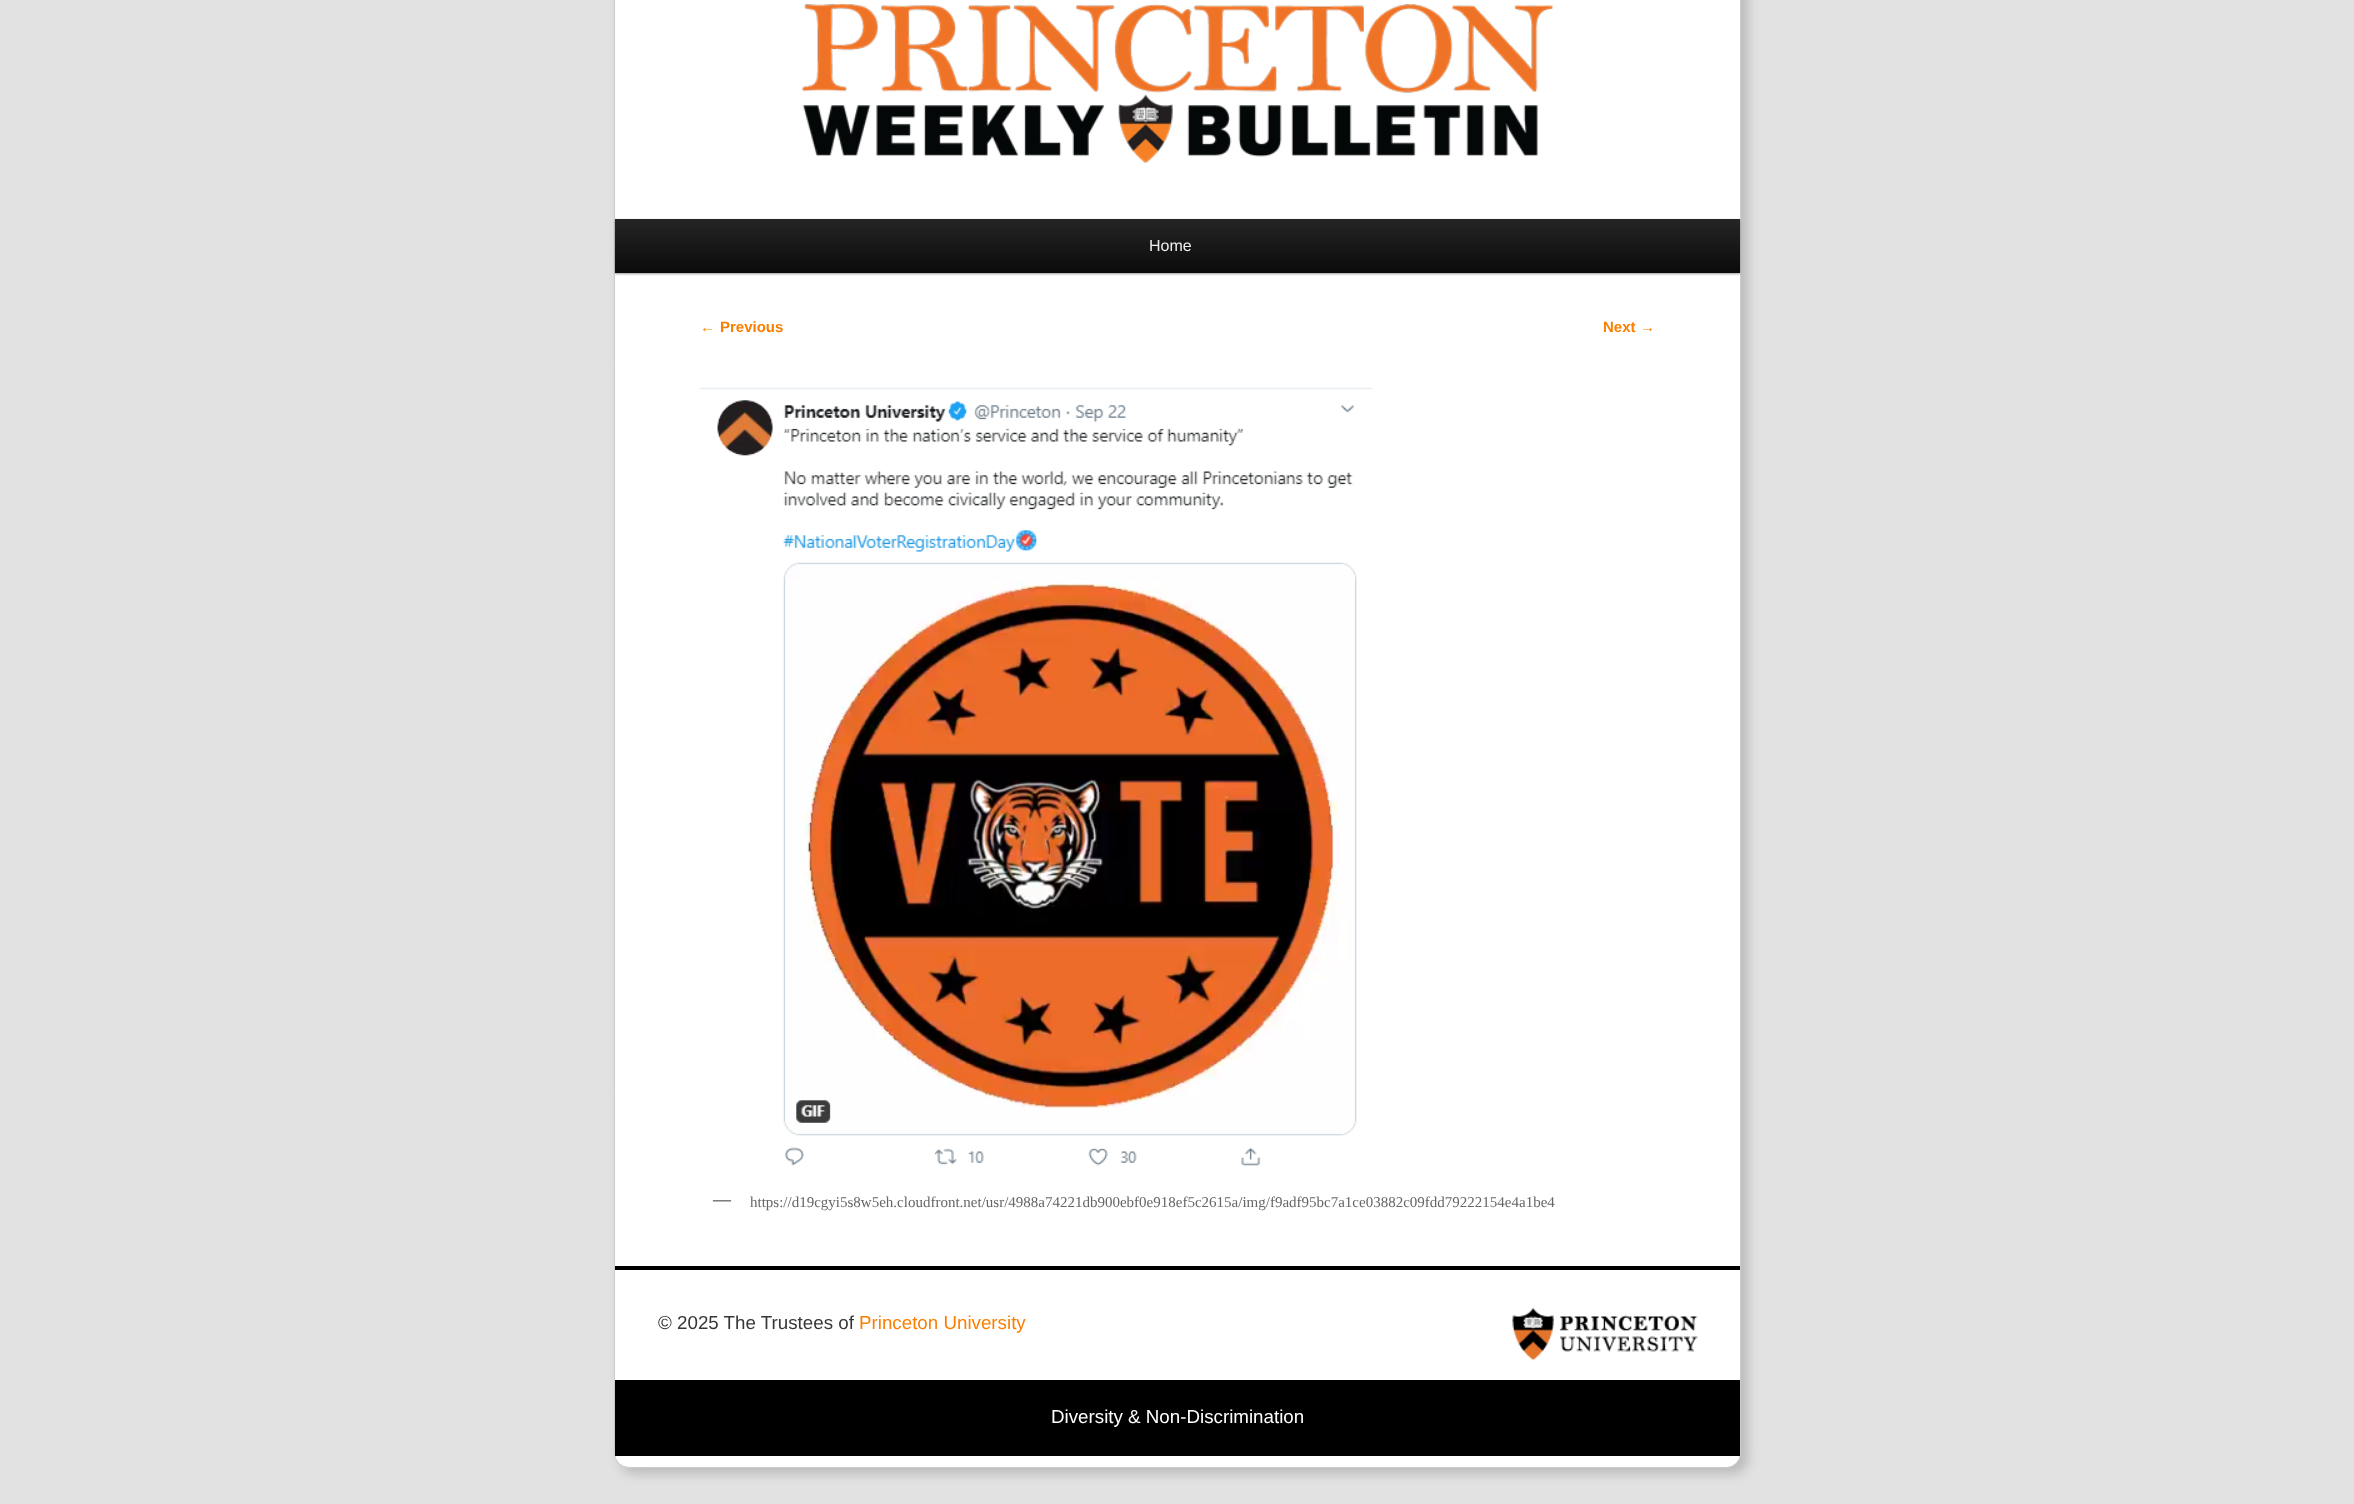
<!DOCTYPE html>
<meta charset="utf-8">
<style>body { margin: 0 } canvas { display: block }</style>
<canvas id="canvas" width="2354" height="1504"></canvas>
<img id="img1" src="img_01.png" hidden>
<img id="img2" src="img_02.png" hidden>
<img id="img3" src="img_03.png" hidden>
<script>
window.onload = function () {
	const canvas = document.getElementById("canvas");
	const ctx = canvas.getContext("2d");
	ctx.miterLimit = 4;
	ctx.fontKerning = "normal";
	function txt(s, x, y) {
		ctx.fillText(s, x, y);
	}
	function fill(x, y, w, h) {
		ctx.fillRect(x, y, w, h);
	}
	function img(id, x, y, w, h) {
		ctx.drawImage(document.getElementById(id), x, y, w, h);
	}
	let gradient;

	ctx.fillStyle = "#E2E2E2";
	fill(0, 0, 2354, 1504);
	ctx.fillStyle = "#BBBBBB";
	ctx.filter = "blur(5.5px)";
	ctx.beginPath();
	ctx.roundRect(620, -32, 1128, 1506, 15);
	ctx.fill();
	ctx.filter = "none";
	ctx.fillStyle = "#FFFFFF";
	ctx.beginPath();
	ctx.roundRect(614.5, -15.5, 1126, 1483, 14.5);
	ctx.fill();
	ctx.strokeStyle = "#CCCCCC";
	ctx.stroke();
	img("img1", 802, 4, 751, 159);
	ctx.fillStyle = "rgba(0, 0, 0, 0.4)";
	ctx.filter = "blur(1px)";
	ctx.beginPath();
	ctx.rect(615, 220, 1125, 54);
	ctx.fill();
	ctx.filter = "none";
	gradient = ctx.createLinearGradient(1178, 219, 1178, 273);
	gradient.addColorStop(0, "#252525");
	gradient.addColorStop(1, "#0A0A0A");
	ctx.fillStyle = gradient;
	fill(615, 219, 1125, 54);
	img("img2", 700, 387, 673, 779);
	ctx.fillStyle = "#000000";
	fill(615, 1266, 1125, 4);
	img("img3", 1512, 1307, 186, 54);
	fill(615, 1380, 1125, 76);
	ctx.font = "16px Liberation Sans";
	ctx.fillStyle = "#EEEEEE";
	txt("Home", 1149, 251);
	ctx.font = "15px Liberation Sans";
	ctx.fillStyle = "#FA7F00";
	txt("←", 700, 332);
	ctx.font = "bold 15px Liberation Sans";
	txt("Previous", 720, 332);
	txt("Next", 1603, 332);
	ctx.font = "15px Liberation Sans";
	txt("→", 1640, 332);
	ctx.font = "bold 18px Liberation Serif";
	ctx.fillStyle = "#666666";
	txt("—", 713, 1205);
	ctx.font = "15px Liberation Serif";
	txt("https://d19cgyi5s8w5eh.cloudfront.net/usr/4988a74221db900ebf0e918ef5c2615a/img/f9adf95bc7a1ce03882c09fdd79222154e4a1be4", 750, 1207);
	ctx.font = "18.75px Liberation Sans";
	ctx.fillStyle = "#373737";
	txt("© 2025 The Trustees of", 658, 1329);
	ctx.fillStyle = "#FA7F00";
	txt("Princeton University", 859, 1329);
	ctx.fillStyle = "#FFFFFF";
	txt("Diversity & Non-Discrimination", 1051, 1423);
};
</script>
